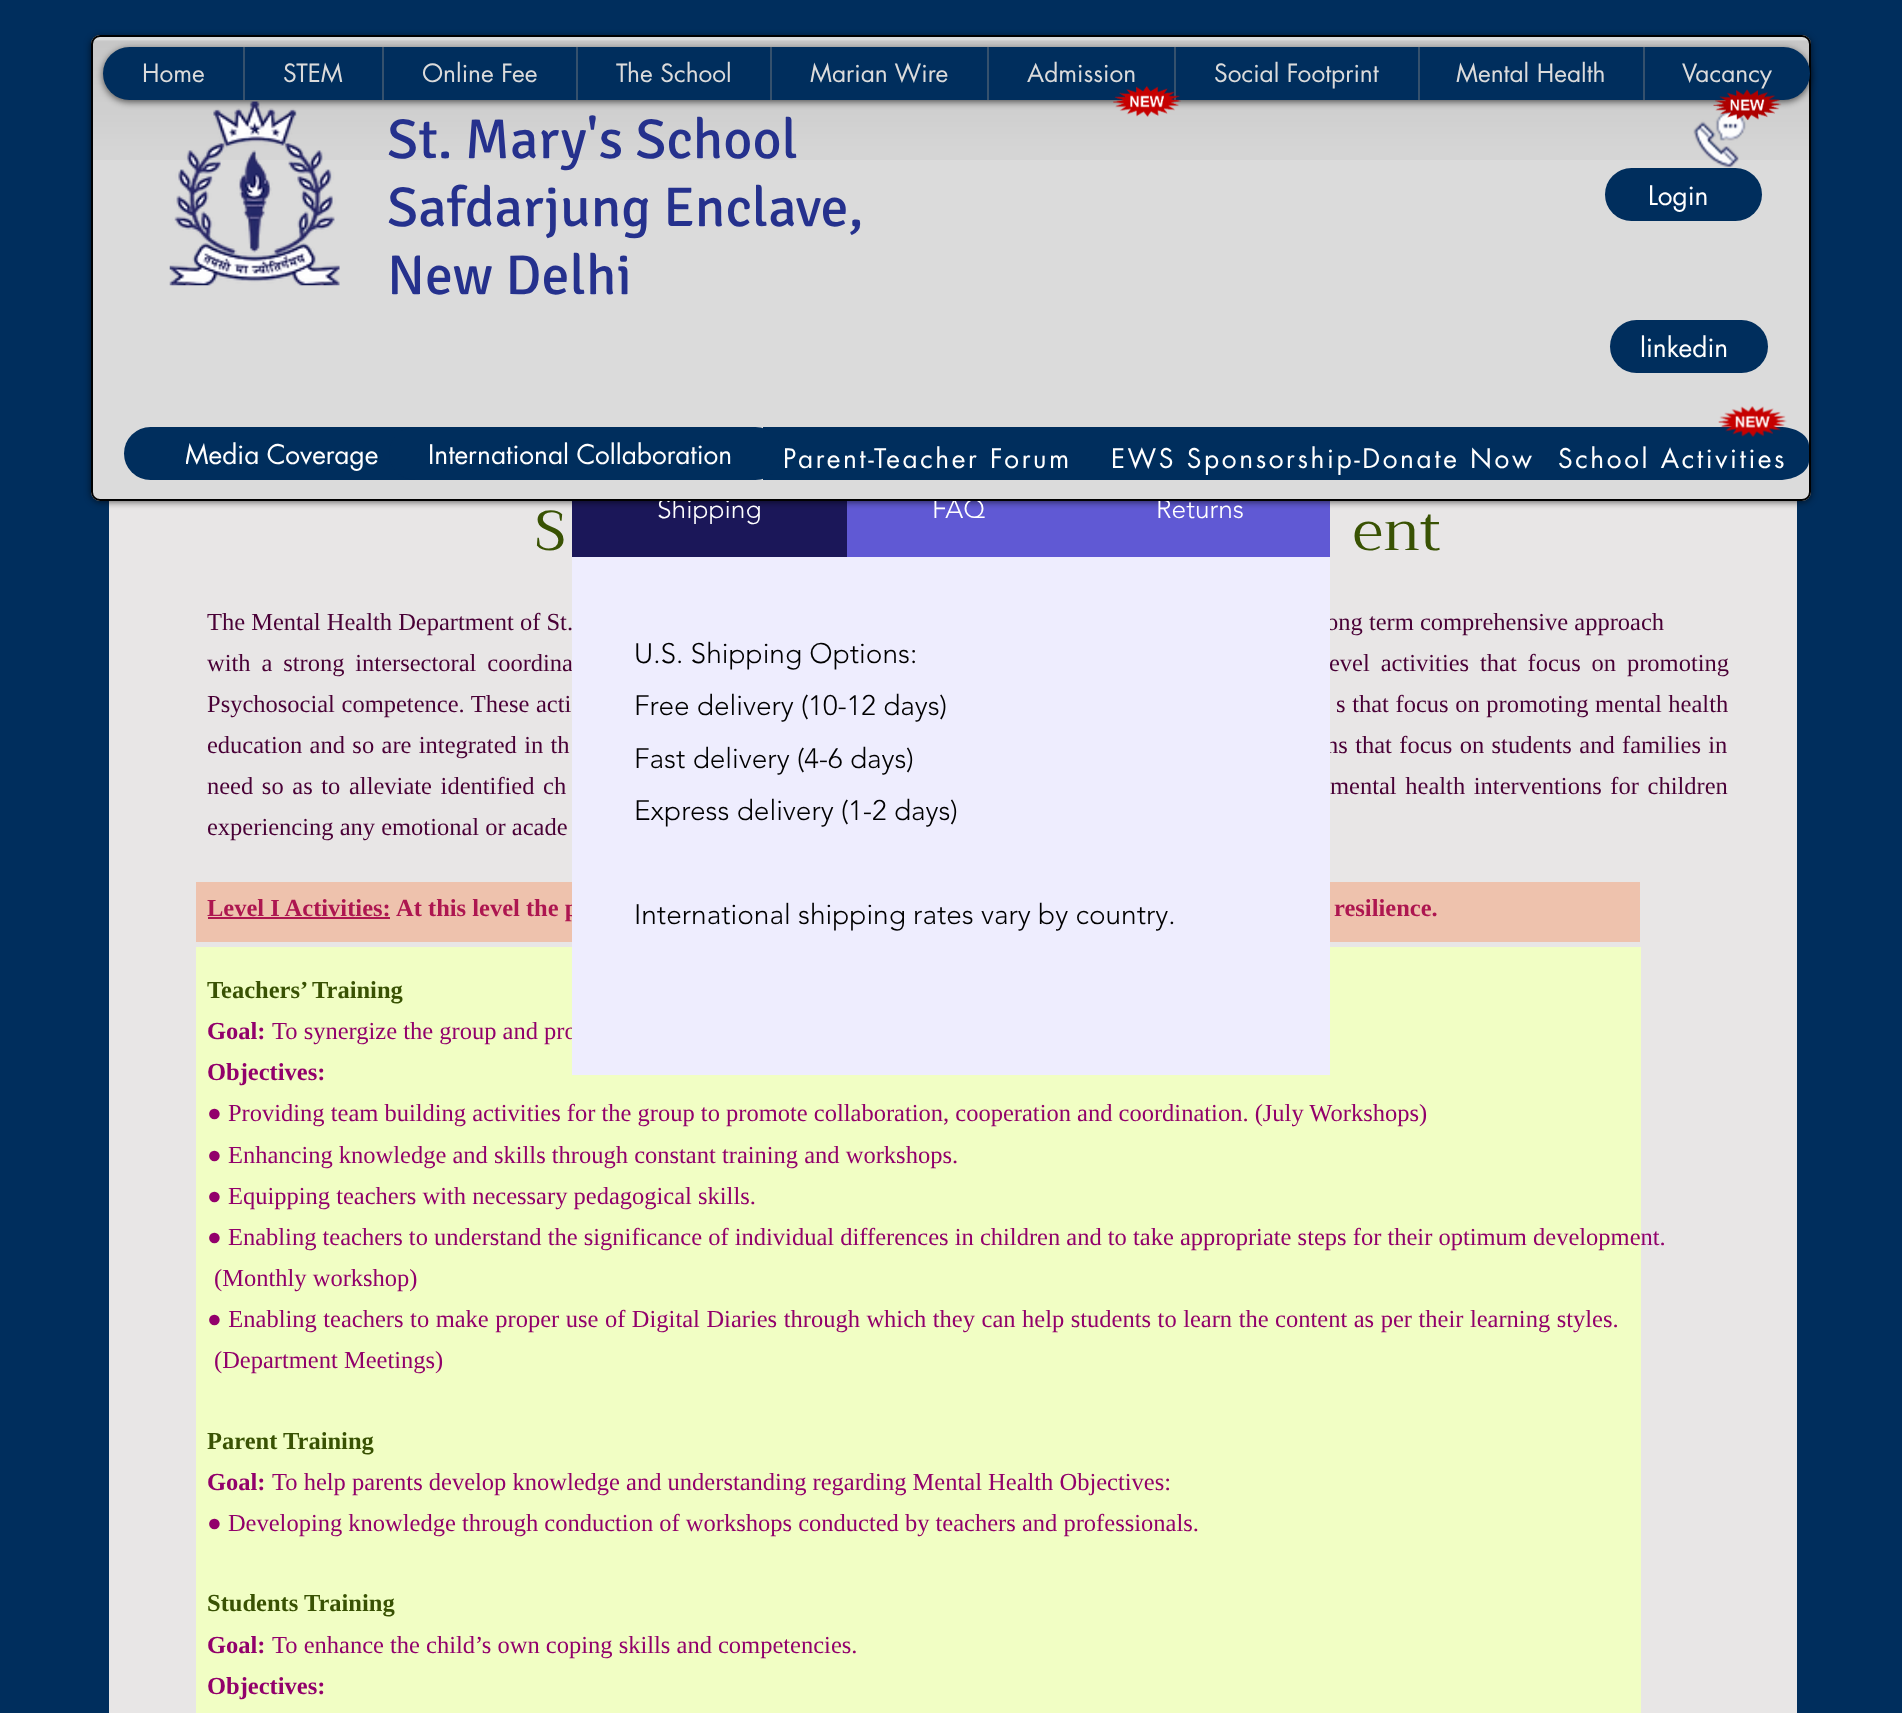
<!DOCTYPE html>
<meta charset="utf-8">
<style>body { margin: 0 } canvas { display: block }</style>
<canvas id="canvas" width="1902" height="1713"></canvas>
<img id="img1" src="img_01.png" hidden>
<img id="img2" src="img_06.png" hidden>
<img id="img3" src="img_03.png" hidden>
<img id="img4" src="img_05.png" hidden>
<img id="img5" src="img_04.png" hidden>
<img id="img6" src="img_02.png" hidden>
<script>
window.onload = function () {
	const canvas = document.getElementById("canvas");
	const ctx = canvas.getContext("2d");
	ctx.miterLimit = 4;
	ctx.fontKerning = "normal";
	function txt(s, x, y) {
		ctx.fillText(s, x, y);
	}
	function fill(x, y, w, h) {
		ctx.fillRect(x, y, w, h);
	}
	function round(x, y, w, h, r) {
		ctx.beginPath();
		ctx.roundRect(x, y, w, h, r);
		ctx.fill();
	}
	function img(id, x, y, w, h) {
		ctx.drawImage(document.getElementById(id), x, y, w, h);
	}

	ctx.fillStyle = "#002E5D";
	fill(0, 0, 1902, 1713);
	ctx.fillStyle = "#E8E6E6";
	fill(109, 501, 1688, 1212);
	ctx.fillStyle = "#1B1759";
	fill(572, 501, 275, 56);
	ctx.fillStyle = "#6059D4";
	fill(847, 501, 483, 56);
	ctx.fillStyle = "rgba(0, 0, 0, 0.6)";
	ctx.filter = "blur(3.5px)";
	ctx.beginPath();
	ctx.roundRect(91, 37, 1720, 465, 9);
	ctx.fill();
	ctx.filter = "none";
	ctx.fillStyle = "#EEC2AD";
	fill(196, 882, 1444, 60);
	ctx.fillStyle = "#AD1650";
	fill(208, 917, 182, 2);
	ctx.fillStyle = "#F1FEC4";
	fill(196, 947, 1445, 766);
	ctx.font = "300 26.25px 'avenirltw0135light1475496'";
	ctx.fillStyle = "#FFFFFF";
	txt("Shipping", 657, 518);
	txt("FAQ", 932, 518);
	txt("Returns", 1156, 518);
	ctx.fillStyle = "#DBDBDB";
	round(91, 35, 1720, 466, 9);
	img("img1", 91, 40, 1720, 120);
	ctx.beginPath();
	ctx.roundRect(92, 36, 1718, 464, 8);
	ctx.strokeStyle = "#000000";
	ctx.lineWidth = 2;
	ctx.stroke();
	ctx.fillStyle = "#002E5D";
	ctx.beginPath();
	ctx.moveTo(1779, 480);
	ctx.lineTo(1700, 480);
	ctx.bezierCurveTo(1683, 480, 1669, 471, 1669, 461);
	ctx.lineTo(1669, 446);
	ctx.bezierCurveTo(1669, 435, 1683, 427, 1700, 427);
	ctx.lineTo(1779, 427);
	ctx.bezierCurveTo(1796, 427, 1809, 435, 1809, 446);
	ctx.lineTo(1809, 461);
	ctx.bezierCurveTo(1809, 471, 1796, 480, 1779, 480);
	ctx.closePath();
	ctx.fill();
	img("img2", 1718, 406, 69, 31);
	fill(763, 427, 936, 53);
	ctx.letterSpacing = "2.6px";
	ctx.font = "26.25px futura";
	ctx.fillStyle = "#FFFFFF";
	txt("School Activities", 1558, 468);
	txt("EWS Sponsorship-Donate Now", 1111, 468);
	txt("Parent-Teacher Forum", 783, 468);
	ctx.fillStyle = "#002E5D";
	round(124, 427, 324, 53, 26.5);
	round(389, 427, 393, 53, 26.5);
	ctx.letterSpacing = "0px";
	ctx.fillStyle = "#FFFFFF";
	txt("International Collaboration", 428, 464);
	ctx.save();
	ctx.beginPath();
	ctx.rect(186, 436, 192, 35);
	ctx.clip();
	txt("Media Coverage", 185, 464);
	ctx.restore();
	ctx.fillStyle = "#002E5D";
	round(1610, 320, 158, 53, 26.5);
	ctx.fillStyle = "#FFFFFF";
	txt("linkedin", 1640, 357);
	ctx.fillStyle = "rgba(0, 0, 0, 0.6)";
	ctx.filter = "blur(3.5px)";
	ctx.beginPath();
	ctx.roundRect(103, 49, 1707, 53, 26.5);
	ctx.fill();
	ctx.filter = "none";
	ctx.fillStyle = "#002E5D";
	round(103, 47, 1707, 53, 26.5);
	ctx.fillStyle = "#35516D";
	fill(1174, 47, 2, 53);
	img("img3", 1113, 85, 68, 32);
	img("img4", 1693, 111, 53, 57);
	img("img5", 1713, 89, 69, 32);
	ctx.fillStyle = "#002E5D";
	round(1605, 168, 157, 53, 26.5);
	ctx.fillStyle = "#FFFFFF";
	txt("Login", 1648, 205);
	ctx.font = "56px Signika";
	ctx.fillStyle = "#25318D";
	txt("New Delhi", 387, 294);
	txt("Safdarjung Enclave,", 387, 226);
	txt("St. Mary's School", 387, 158);
	img("img6", 169, 101, 171, 185);
	ctx.font = "24.5px futura";
	ctx.fillStyle = "#DBDBDB";
	txt("Vacancy", 1682, 82);
	ctx.fillStyle = "#35516D";
	fill(1643, 47, 2, 53);
	ctx.fillStyle = "#DBDBDB";
	txt("Mental Health", 1456, 82);
	ctx.fillStyle = "#35516D";
	fill(1418, 47, 2, 53);
	ctx.fillStyle = "#DBDBDB";
	txt("Social Footprint", 1214, 82);
	txt("Admission", 1027, 82);
	ctx.fillStyle = "#35516D";
	fill(987, 47, 2, 53);
	ctx.fillStyle = "#DBDBDB";
	txt("Marian Wire", 810, 82);
	ctx.fillStyle = "#35516D";
	fill(770, 47, 2, 53);
	ctx.fillStyle = "#DBDBDB";
	txt("The School", 616, 82);
	ctx.fillStyle = "#35516D";
	fill(576, 47, 2, 53);
	ctx.fillStyle = "#DBDBDB";
	txt("Online Fee", 422, 82);
	ctx.fillStyle = "#35516D";
	fill(382, 47, 2, 53);
	ctx.fillStyle = "#DBDBDB";
	txt("STEM", 283, 82);
	ctx.fillStyle = "#35516D";
	fill(243, 47, 2, 53);
	ctx.fillStyle = "#DBDBDB";
	txt("Home", 142, 82);
	ctx.font = "56px Trirong";
	ctx.fillStyle = "#395203";
	txt("S", 535, 550);
	txt("ent", 1353, 550);
	ctx.font = "24.5px Liberation Serif";
	ctx.fillStyle = "#490036";
	txt("The Mental Health Department of St.", 207, 630);
	txt("ong term comprehensive approach", 1326, 630);
	ctx.wordSpacing = "4.75px";
	txt("with a strong intersectoral coordina", 207, 671);
	txt("evel activities that focus on promoting", 1329, 671);
	ctx.wordSpacing = "0.5px";
	txt("Psychosocial competence. These acti", 207, 712);
	txt("s that focus on promoting mental health", 1336, 712);
	ctx.wordSpacing = "1.25px";
	txt("education and so are integrated in th", 207, 753);
	txt("ns that focus on students and families in", 1326, 753);
	ctx.wordSpacing = "2.5px";
	txt("need so as to alleviate identified ch", 207, 794);
	txt("mental health interventions for children", 1330, 794);
	ctx.wordSpacing = "0px";
	txt("experiencing any emotional or acade", 207, 835);
	ctx.font = "bold 24.5px Liberation Serif";
	ctx.fillStyle = "#AD1650";
	txt("Level I Activities:", 207, 916);
	txt("At this level the p", 396, 916);
	txt("resilience.", 1334, 916);
	ctx.fillStyle = "#395203";
	txt("Teachers’ Training", 207, 998);
	ctx.fillStyle = "#92006B";
	txt("Goal:", 207, 1039);
	ctx.font = "24.5px Liberation Serif";
	txt("To synergize the group and pro", 272, 1039);
	ctx.fillStyle = "#EEEDFE";
	fill(572, 557, 758, 518);
	ctx.font = "300 28px 'avenirltw0135light1475496'";
	ctx.fillStyle = "#000000";
	txt("International shipping rates vary by country.", 634, 924);
	txt("Express delivery (1-2 days)", 634, 820);
	txt("Fast delivery (4-6 days)", 634, 768);
	txt("Free delivery (10-12 days)", 634, 715);
	txt("U.S. Shipping Options:", 634, 663);
	ctx.font = "bold 24.5px Liberation Serif";
	ctx.fillStyle = "#92006B";
	txt("Objectives:", 207, 1080);
	ctx.font = "24.5px Liberation Serif";
	txt("● Providing team building activities for the group to promote collaboration, cooperation and coordination. (July Workshops)", 207, 1121);
	txt("● Enhancing knowledge and skills through constant training and workshops.", 207, 1163);
	txt("● Equipping teachers with necessary pedagogical skills.", 207, 1204);
	txt("● Enabling teachers to understand the significance of individual differences in children and to take appropriate steps for their optimum development.", 207, 1245);
	txt("(Monthly workshop)", 214, 1286);
	ctx.wordSpacing = "0.4px";
	txt("● Enabling teachers to make proper use of Digital Diaries through which they can help students to learn the content as per their learning styles.", 207, 1327);
	ctx.wordSpacing = "0px";
	txt("(Department Meetings)", 214, 1368);
	ctx.font = "bold 24.5px Liberation Serif";
	ctx.fillStyle = "#395203";
	txt("Parent Training", 207, 1449);
	ctx.fillStyle = "#92006B";
	txt("Goal:", 207, 1490);
	ctx.font = "24.5px Liberation Serif";
	txt("To help parents develop knowledge and understanding regarding Mental Health Objectives:", 272, 1490);
	txt("● Developing knowledge through conduction of workshops conducted by teachers and professionals.", 207, 1531);
	ctx.font = "bold 24.5px Liberation Serif";
	ctx.fillStyle = "#395203";
	txt("Students Training", 207, 1611);
	ctx.fillStyle = "#92006B";
	txt("Goal:", 207, 1653);
	ctx.font = "24.5px Liberation Serif";
	txt("To enhance the child’s own coping skills and competencies.", 272, 1653);
	ctx.font = "bold 24.5px Liberation Serif";
	txt("Objectives:", 207, 1694);
};
</script>
